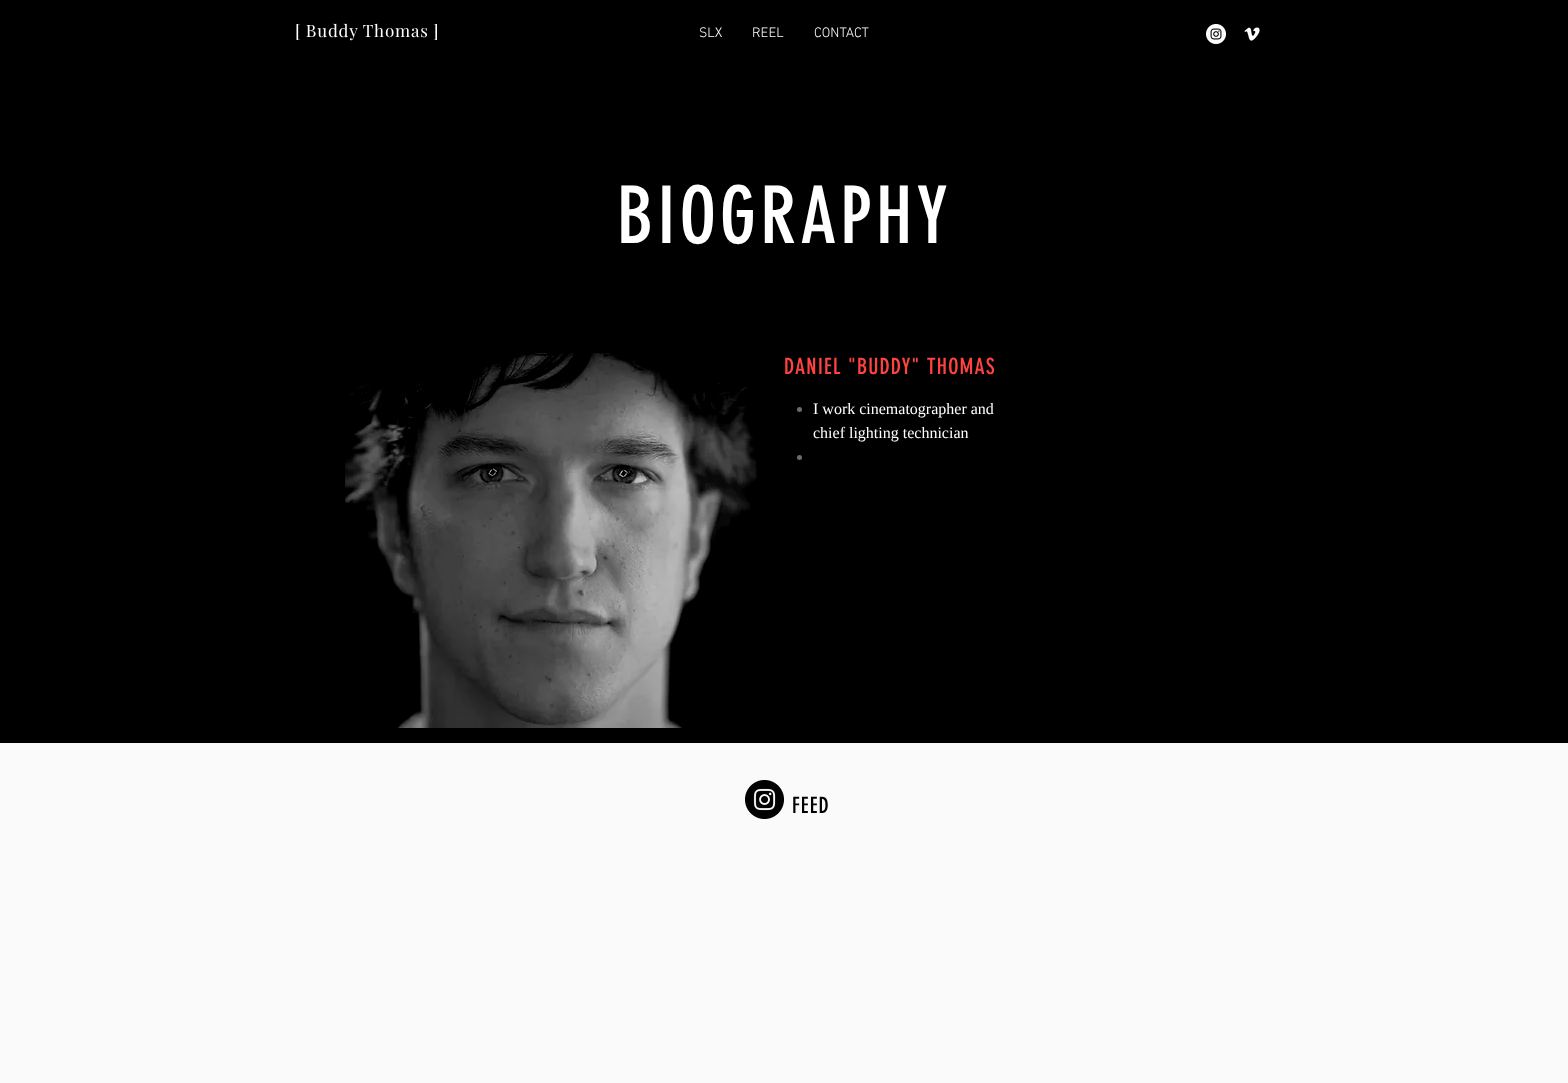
<!DOCTYPE html>
<meta charset="utf-8">
<style>body { margin: 0 } canvas { display: block }</style>
<canvas id="canvas" width="1568" height="1083"></canvas>
<img id="img1" src="img_01.png" hidden>
<img id="img2" src="img_02.png" hidden>
<img id="img3" src="img_03.png" hidden>
<img id="img4" src="img_04.png" hidden>
<script>
window.onload = function () {
	const canvas = document.getElementById("canvas");
	const ctx = canvas.getContext("2d");
	ctx.miterLimit = 4;
	ctx.fontKerning = "normal";
	function txt(s, x, y) {
		ctx.fillText(s, x, y);
	}
	function fill(x, y, w, h) {
		ctx.fillRect(x, y, w, h);
	}
	function img(id, x, y, w, h) {
		ctx.drawImage(document.getElementById(id), x, y, w, h);
	}

	ctx.fillStyle = "#000000";
	fill(0, 0, 1568, 1083);
	img("img1", 1206, 24, 20, 20);
	img("img2", 1244, 27, 16, 14);
	img("img3", 345, 353, 412, 375);
	ctx.fillStyle = "#6B6B6B";
	ctx.beginPath();
	ctx.arc(799.5, 409.5, 2.5, 0, Math.PI * 2);
	ctx.fill();
	ctx.beginPath();
	ctx.arc(799.5, 457.5, 2.5, 0, Math.PI * 2);
	ctx.fill();
	ctx.fillStyle = "#FAFAFA";
	fill(0, 743, 1568, 340);
	img("img4", 745, 780, 39, 39);
	ctx.letterSpacing = "0.8px";
	ctx.font = "17px Playfair Display";
	ctx.fillStyle = "#FFFFFF";
	txt("[ Buddy Thomas ]", 295, 37);
	ctx.letterSpacing = "0px";
	ctx.font = "300 14px 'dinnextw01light'";
	txt("SLX", 699, 37);
	txt("REEL", 752, 37);
	txt("CONTACT", 814, 37);
	ctx.letterSpacing = "4px";
	ctx.font = "78px 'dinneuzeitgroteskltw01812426'";
	txt("BIOGRAPHY", 617, 243);
	ctx.letterSpacing = "1.1px";
	ctx.font = "22px 'dinneuzeitgroteskltw01812426'";
	ctx.fillStyle = "#FF4242";
	txt("DANIEL \"BUDDY\" THOMAS", 784, 374);
	ctx.letterSpacing = "0px";
	ctx.font = "16px Liberation Serif";
	ctx.fillStyle = "#FFFFFF";
	txt("I work cinematographer and", 813, 414);
	txt("chief lighting technician", 813, 438);
	ctx.letterSpacing = "1.1px";
	ctx.font = "22px 'dinneuzeitgroteskltw01812426'";
	ctx.fillStyle = "#000000";
	txt("FEED", 792, 813);
};
</script>
